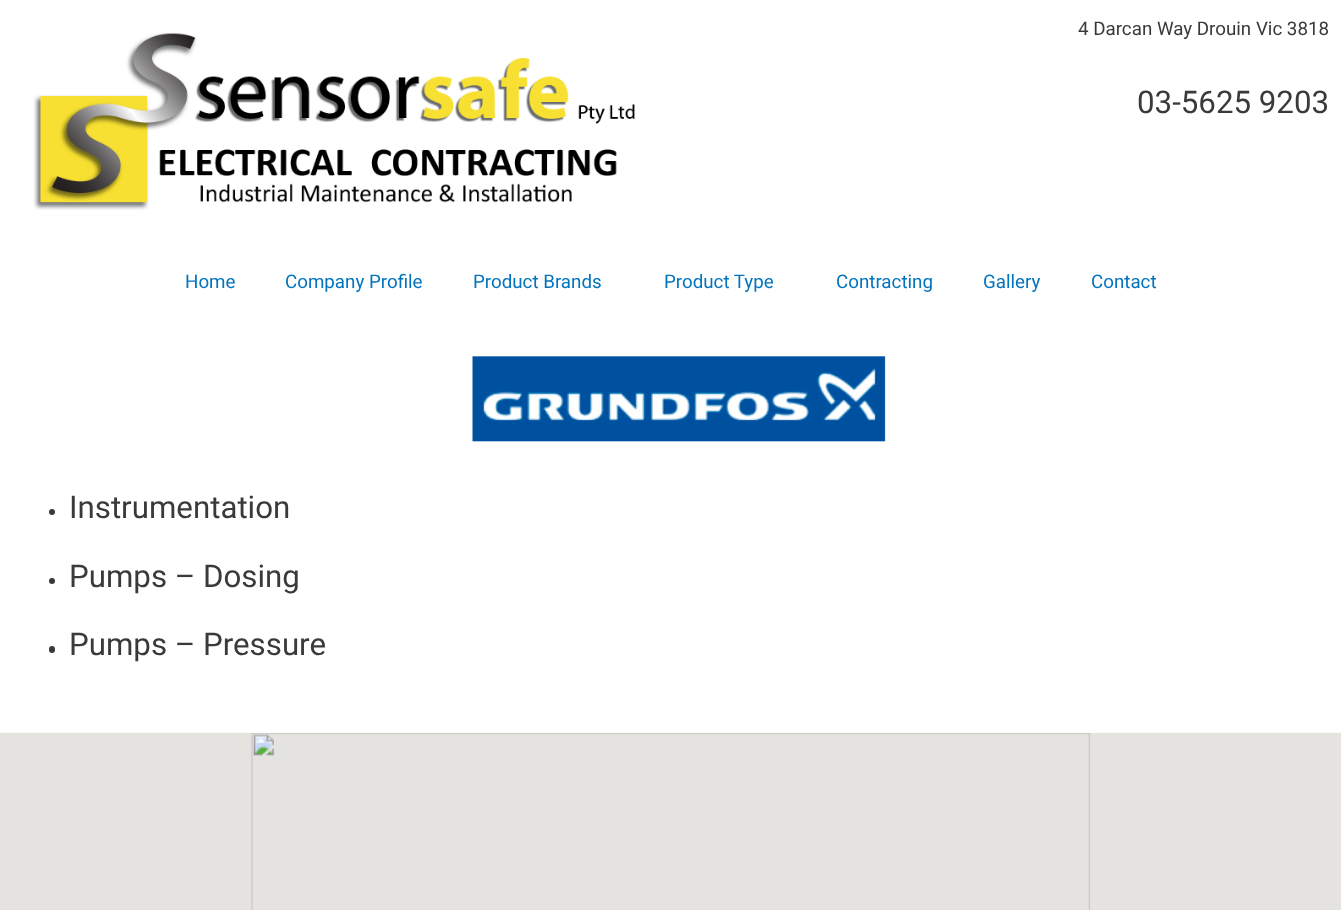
<!DOCTYPE html>
<meta charset="utf-8">
<style>body { margin: 0 } canvas { display: block }</style>
<canvas id="canvas" width="1341" height="910"></canvas>
<img id="img1" src="img_01.png" hidden>
<img id="img2" src="img_02.png" hidden>
<img id="img3" src="img_03.png" hidden>
<script>
window.onload = function () {
	const canvas = document.getElementById("canvas");
	const ctx = canvas.getContext("2d");
	ctx.miterLimit = 4;
	ctx.fontKerning = "normal";
	function txt(s, x, y) {
		ctx.fillText(s, x, y);
	}
	function fill(x, y, w, h) {
		ctx.fillRect(x, y, w, h);
	}
	function round(x, y, w, h, r) {
		ctx.beginPath();
		ctx.roundRect(x, y, w, h, r);
		ctx.fill();
	}
	function img(id, x, y, w, h) {
		ctx.drawImage(document.getElementById(id), x, y, w, h);
	}

	ctx.fillStyle = "#FFFFFF";
	fill(0, 0, 1341, 910);
	img("img1", 33, 32, 602, 178);
	img("img2", 472, 356, 414, 86);
	ctx.fillStyle = "#3A3A3A";
	ctx.beginPath();
	ctx.arc(52, 512, 3, 0, Math.PI * 2);
	ctx.fill();
	ctx.beginPath();
	ctx.arc(52, 581, 3, 0, Math.PI * 2);
	ctx.fill();
	round(49, 646, 6, 7, 3);
	img("img3", 0, 732, 1341, 178);
	ctx.font = "18.75px Roboto";
	txt("4 Darcan Way Drouin Vic 3818", 1078, 35);
	ctx.font = "31.25px Roboto";
	txt("03-5625 9203", 1137, 113);
	ctx.font = "18.75px Roboto";
	ctx.fillStyle = "#0274BE";
	txt("Home", 185, 288);
	txt("Company Profile", 285, 288);
	txt("Product Brands", 473, 288);
	txt("Product Type", 664, 288);
	txt("Contracting", 836, 288);
	txt("Gallery", 983, 288);
	txt("Contact", 1091, 288);
	ctx.font = "31.25px Roboto";
	ctx.fillStyle = "#3A3A3A";
	txt("Instrumentation", 69, 518);
	txt("Pumps – Dosing", 69, 587);
	txt("Pumps – Pressure", 69, 655);
};
</script>
